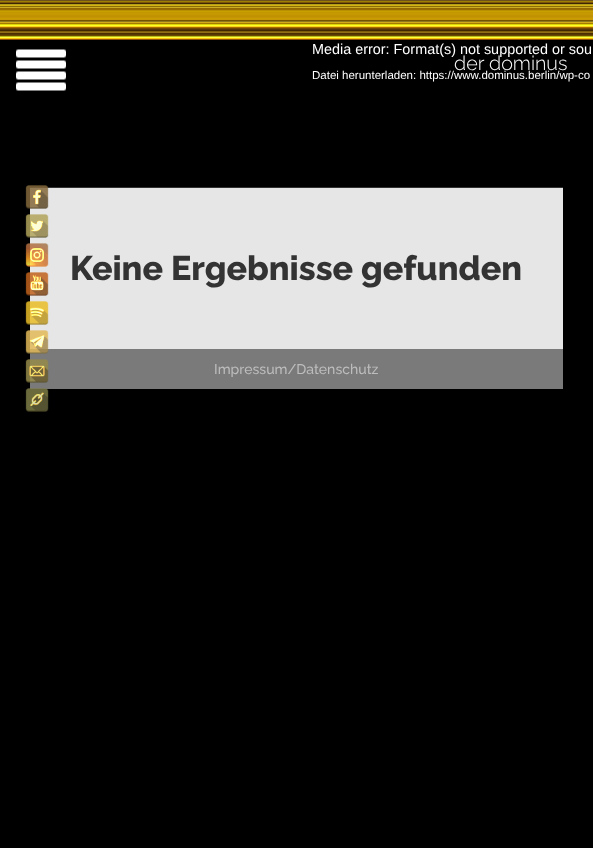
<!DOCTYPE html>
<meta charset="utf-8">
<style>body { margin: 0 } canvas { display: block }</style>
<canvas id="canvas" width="593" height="848"></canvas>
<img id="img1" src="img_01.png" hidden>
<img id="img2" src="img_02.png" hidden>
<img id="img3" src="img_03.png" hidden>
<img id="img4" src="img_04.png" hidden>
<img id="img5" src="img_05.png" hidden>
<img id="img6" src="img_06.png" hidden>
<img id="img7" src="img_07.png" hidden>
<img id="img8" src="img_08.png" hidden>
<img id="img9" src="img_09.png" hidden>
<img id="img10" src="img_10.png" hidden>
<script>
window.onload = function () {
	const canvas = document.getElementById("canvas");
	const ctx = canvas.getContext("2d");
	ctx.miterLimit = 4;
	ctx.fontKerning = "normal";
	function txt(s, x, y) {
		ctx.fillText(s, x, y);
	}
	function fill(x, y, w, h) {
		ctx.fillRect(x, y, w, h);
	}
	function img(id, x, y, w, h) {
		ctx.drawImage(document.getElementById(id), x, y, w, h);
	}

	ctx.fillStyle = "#000000";
	fill(0, 0, 593, 848);
	ctx.fillStyle = "#E6E6E6";
	fill(30, 188, 533, 161);
	ctx.fillStyle = "#333333";
	fill(30, 187, 533, 1);
	ctx.fillStyle = "#7A7A7A";
	fill(30, 349, 533, 40);
	img("img1", 0, 0, 593, 40);
	img("img2", 16, 49, 50, 42);
	img("img3", 25, 185, 24, 24);
	img("img4", 25, 214, 24, 24);
	img("img5", 25, 243, 24, 24);
	img("img6", 25, 272, 24, 24);
	img("img7", 25, 301, 24, 24);
	img("img8", 25, 330, 24, 24);
	img("img9", 25, 359, 24, 24);
	img("img10", 25, 388, 24, 24);
	ctx.font = "14.4px Liberation Sans";
	ctx.fillStyle = "#FFFFFF";
	txt("Media error: Format(s) not supported or sou", 312, 54);
	ctx.font = "11.5px Liberation Sans";
	txt("Datei herunterladen: https://www.dominus.berlin/wp-co", 312, 79);
	ctx.font = "800 34px Raleway";
	ctx.fillStyle = "#333333";
	txt("Keine Ergebnisse gefunden", 70, 280);
	ctx.font = "500 14px Raleway";
	ctx.fillStyle = "#BDBDBD";
	txt("Impressum/Datenschutz", 214, 374);
	ctx.font = "300 19.75px Raleway";
	ctx.fillStyle = "#FFFFFF";
	txt("der dominus", 454, 70);
};
</script>
